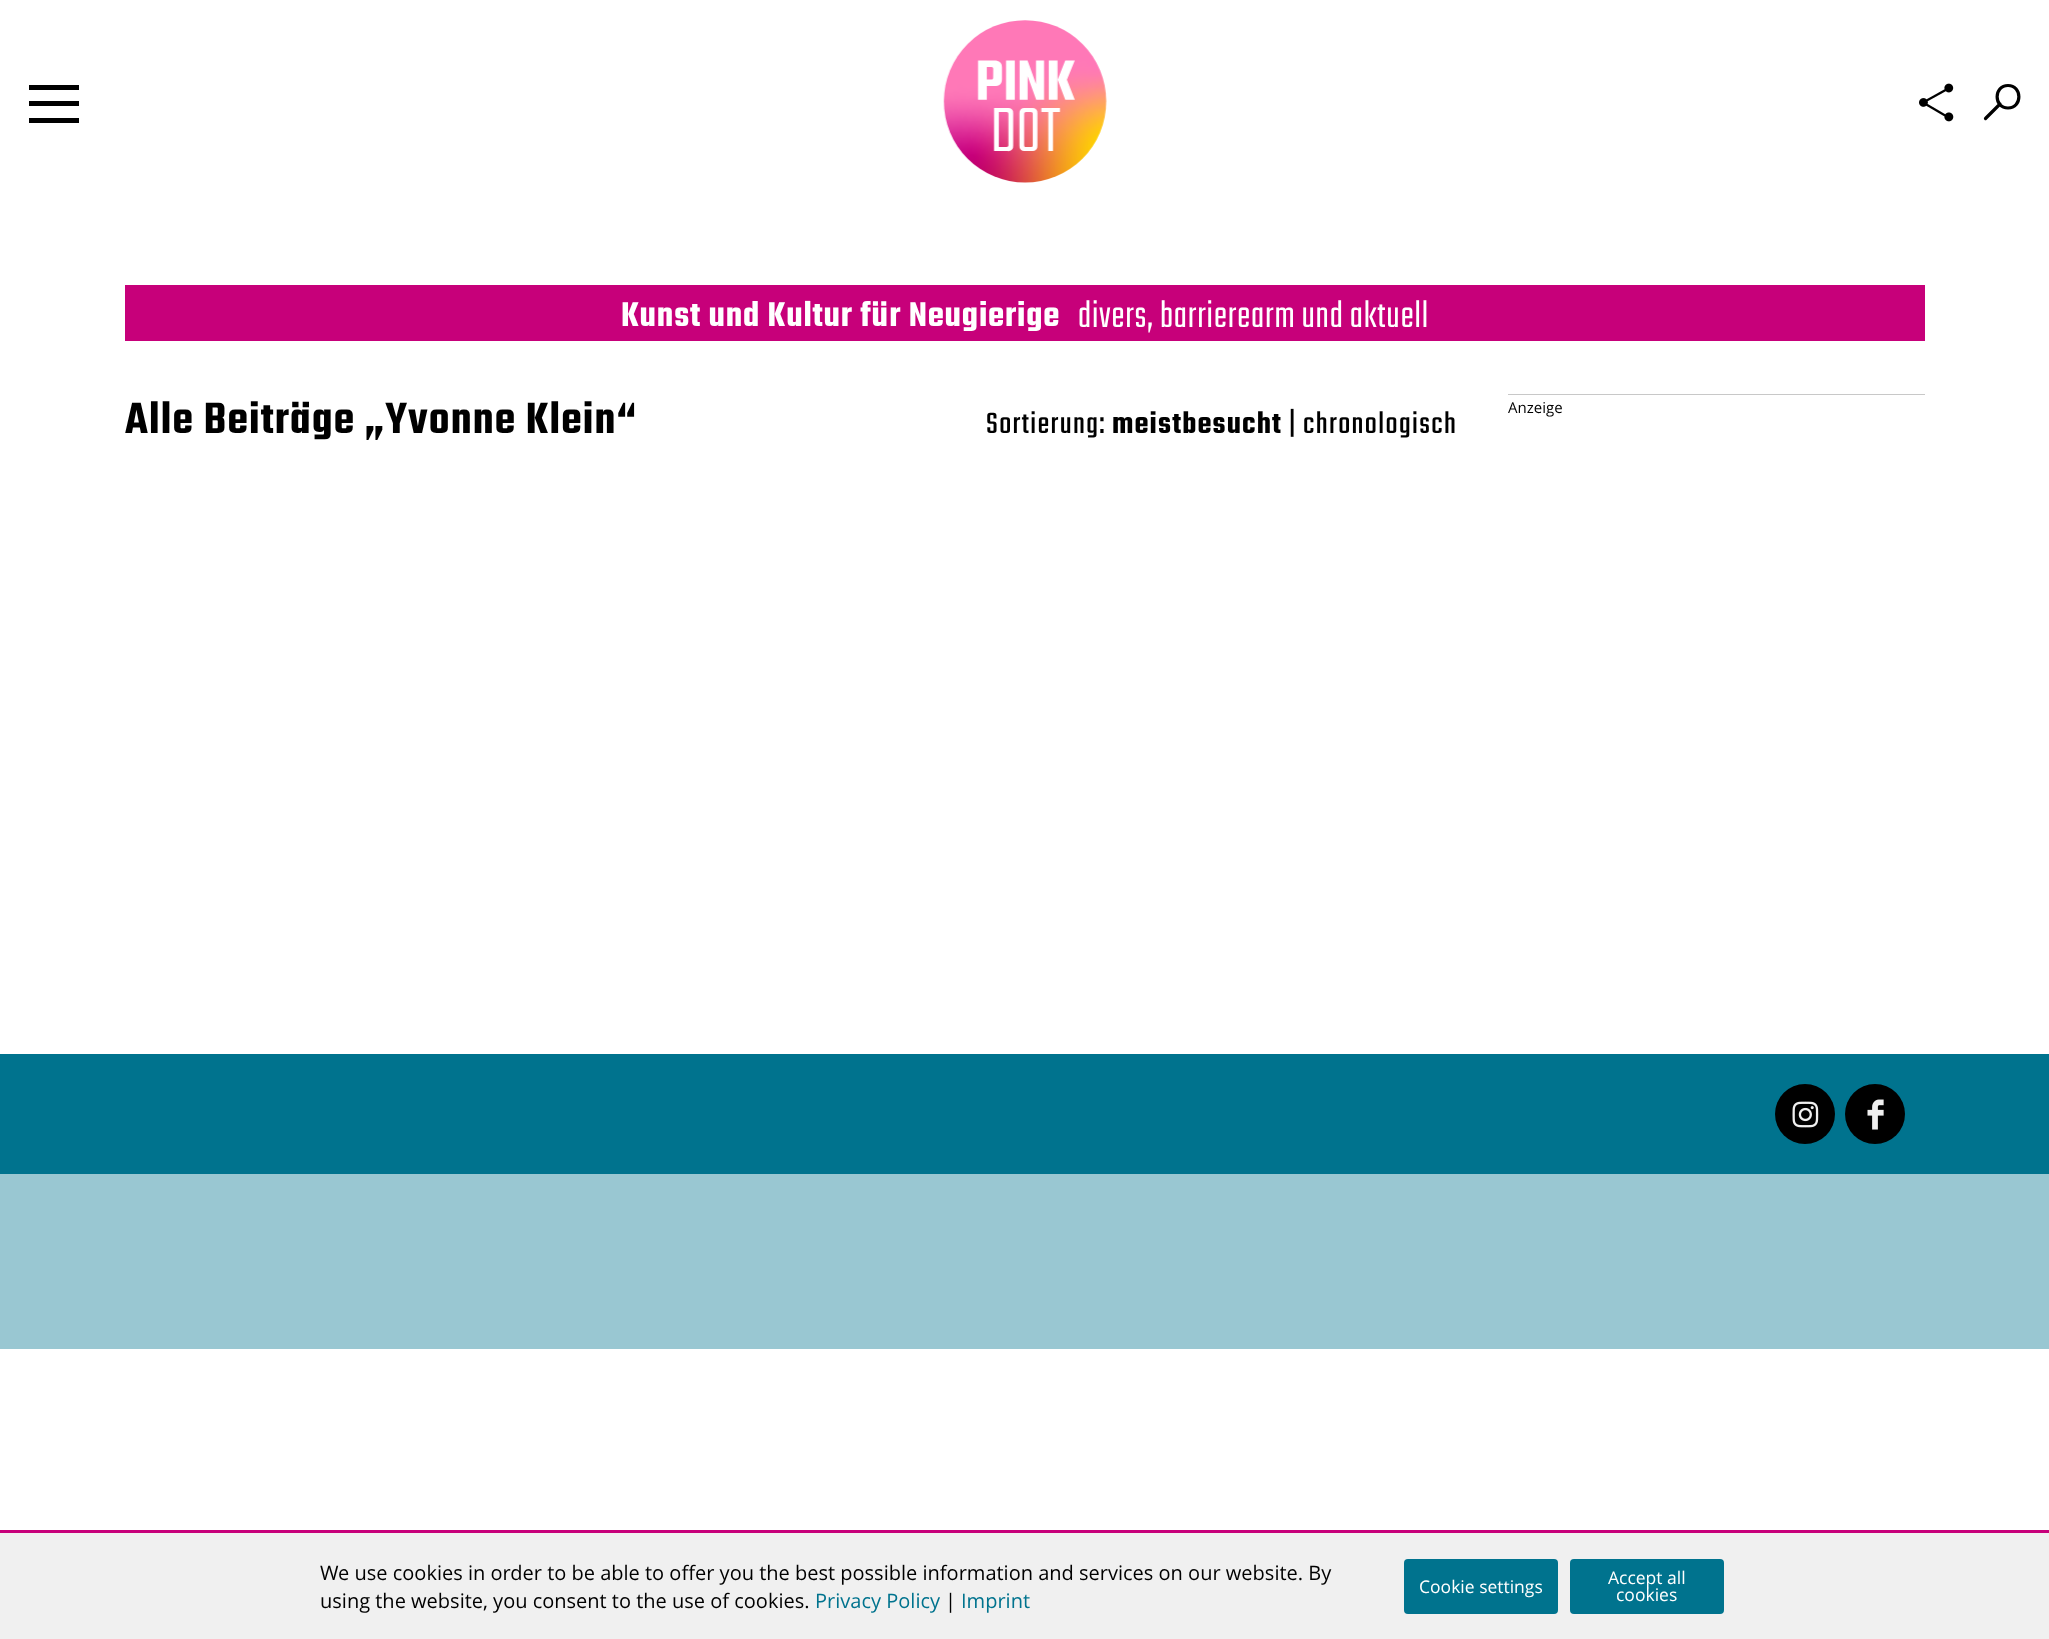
<!DOCTYPE html>
<meta charset="utf-8">
<style>body { margin: 0 } canvas { display: block }</style>
<canvas id="canvas" width="2049" height="1639"></canvas>
<img id="img1" src="img_01.png" hidden>
<img id="img2" src="img_02.png" hidden>
<img id="img3" src="img_03.png" hidden>
<img id="img4" src="img_04.png" hidden>
<script>
window.onload = function () {
	const canvas = document.getElementById("canvas");
	const ctx = canvas.getContext("2d");
	ctx.miterLimit = 4;
	ctx.fontKerning = "normal";
	function txt(s, x, y) {
		ctx.fillText(s, x, y);
	}
	function fill(x, y, w, h) {
		ctx.fillRect(x, y, w, h);
	}
	function round(x, y, w, h, r) {
		ctx.beginPath();
		ctx.roundRect(x, y, w, h, r);
		ctx.fill();
	}
	function img(id, x, y, w, h) {
		ctx.drawImage(document.getElementById(id), x, y, w, h);
	}

	ctx.fillStyle = "#FFFFFF";
	fill(0, 0, 2049, 1639);
	ctx.fillStyle = "#000000";
	fill(29, 85, 50, 5);
	fill(29, 101, 50, 5);
	fill(29, 118, 50, 5);
	img("img1", 943, 20, 164, 163);
	img("img2", 1919, 83, 35, 39);
	ctx.beginPath();
	ctx.moveTo(2008, 85.5);
	ctx.bezierCurveTo(1993.5, 85.5, 1993.5, 108, 2008, 108);
	ctx.bezierCurveTo(2022.5, 108, 2022.5, 85.5, 2008, 85.5);
	ctx.closePath();
	ctx.moveTo(2000, 104);
	ctx.lineTo(1985.5, 118.5);
	ctx.strokeStyle = "#000000";
	ctx.lineWidth = 3.2;
	ctx.lineCap = "round";
	ctx.stroke();
	ctx.fillStyle = "#C7007A";
	fill(125, 285, 1800, 56);
	ctx.fillStyle = "#C8C8C8";
	fill(1508, 394, 417, 1);
	ctx.fillStyle = "#00738E";
	fill(0, 1054, 2049, 120);
	ctx.fillStyle = "#000000";
	ctx.beginPath();
	ctx.arc(1805, 1114, 30, 0, Math.PI * 2);
	ctx.fill();
	img("img3", 1792, 1101, 27, 27);
	ctx.beginPath();
	ctx.arc(1875, 1114, 30, 0, Math.PI * 2);
	ctx.fill();
	img("img4", 1867, 1099, 17, 31);
	ctx.fillStyle = "#99C7D2";
	fill(0, 1174, 2049, 175);
	ctx.fillStyle = "#F0F0F0";
	fill(0, 1533, 2049, 106);
	ctx.fillStyle = "#C7007A";
	fill(0, 1530, 2049, 3);
	ctx.fillStyle = "#00738E";
	round(1404, 1559, 154, 55, 4);
	round(1570, 1559, 154, 55, 4);
	ctx.letterSpacing = "0.8px";
	ctx.font = "600 37.5px Teko";
	ctx.fillStyle = "#FFFFFF";
	txt("Kunst und Kultur für Neugierige", 621, 326);
	ctx.letterSpacing = "0.85px";
	ctx.font = "300 40px Teko";
	txt("divers, barrierearm und aktuell", 1078, 327);
	ctx.letterSpacing = "1.15px";
	ctx.font = "600 47.5px Teko";
	ctx.fillStyle = "#000000";
	txt("Alle Beiträge „Yvonne Klein“", 125, 433);
	ctx.letterSpacing = "1.4px";
	ctx.font = "32.5px Teko";
	txt("Sortierung:", 986, 433);
	ctx.letterSpacing = "1.15px";
	ctx.font = "600 32.5px Teko";
	txt("meistbesucht", 1112, 433);
	ctx.letterSpacing = "1.4px";
	ctx.font = "32.5px Teko";
	txt("| chronologisch", 1289, 433);
	ctx.letterSpacing = "0px";
	ctx.font = "15px Open Sans";
	txt("Anzeige", 1508, 413);
	ctx.font = "20px Open Sans";
	txt("We use cookies in order to be able to offer you the best possible information and services on our website. By", 320, 1580);
	txt("using the website, you consent to the use of cookies.", 320, 1608);
	ctx.fillStyle = "#00738E";
	txt("Privacy Policy", 815, 1608);
	ctx.fillStyle = "#000000";
	txt("|", 945, 1608);
	ctx.fillStyle = "#00738E";
	txt("Imprint", 961, 1608);
	ctx.font = "17.5px Open Sans";
	ctx.fillStyle = "#FFFFFF";
	txt("Cookie settings", 1419, 1593);
	txt("Accept all", 1608, 1584);
	txt("cookies", 1616, 1601);
};
</script>
